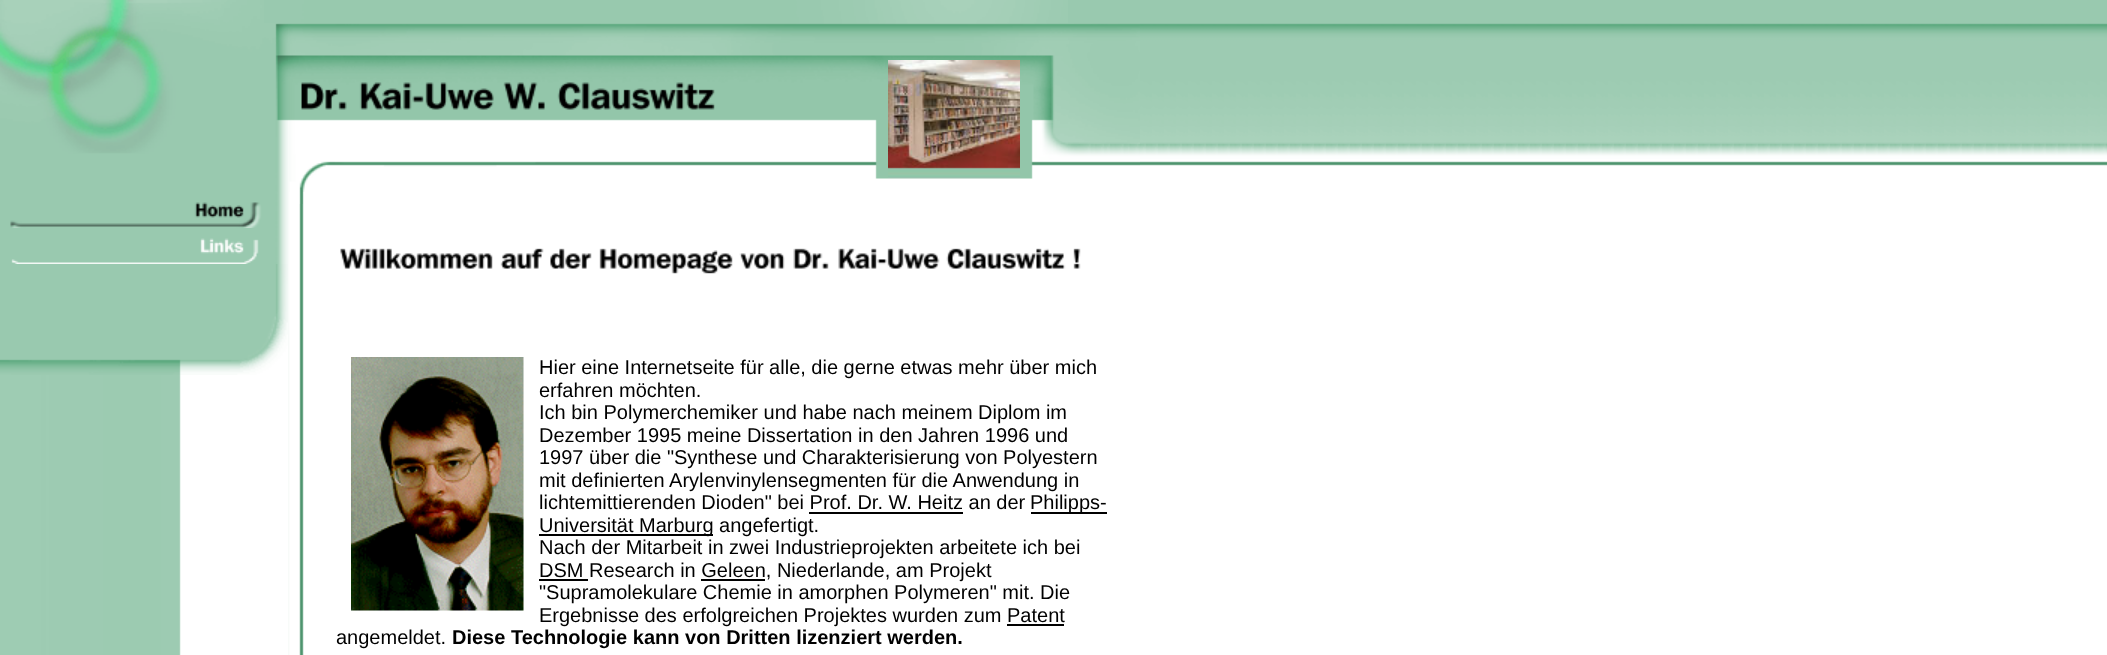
<!DOCTYPE html>
<meta charset="utf-8">
<style>body { margin: 0 } canvas { display: block }</style>
<canvas id="canvas" width="2107" height="655"></canvas>
<img id="img1" src="img_01.png" hidden>
<img id="img2" src="img_02.png" hidden>
<img id="img3" src="img_03.png" hidden>
<img id="img4" src="img_04.png" hidden>
<img id="img5" src="img_05.png" hidden>
<img id="img6" src="img_06.png" hidden>
<img id="img7" src="img_07.png" hidden>
<img id="img8" src="img_08.png" hidden>
<img id="img9" src="img_09.png" hidden>
<img id="img10" src="img_10.png" hidden>
<img id="img11" src="img_11.png" hidden>
<img id="img12" src="img_12.png" hidden>
<img id="img13" src="img_13.png" hidden>
<img id="img14" src="img_14.png" hidden>
<img id="img15" src="img_15.png" hidden>
<img id="img16" src="img_16.png" hidden>
<img id="img17" src="img_17.png" hidden>
<img id="img18" src="img_18.png" hidden>
<img id="img19" src="img_19.png" hidden>
<script>
window.onload = function () {
	const canvas = document.getElementById("canvas");
	const ctx = canvas.getContext("2d");
	ctx.miterLimit = 4;
	ctx.fontKerning = "normal";
	function txt(s, x, y) {
		ctx.fillText(s, x, y);
	}
	function fill(x, y, w, h) {
		ctx.fillRect(x, y, w, h);
	}
	function img(id, x, y, w, h) {
		ctx.drawImage(document.getElementById(id), x, y, w, h);
	}

	ctx.fillStyle = "#FFFFFF";
	fill(0, 0, 2107, 655);
	img("img1", 264, 0, 1843, 166);
	img("img2", 0, 0, 264, 192);
	img("img3", 264, 23, 24, 169);
	img("img4", 288, 0, 732, 60);
	img("img5", 288, 60, 600, 72);
	img("img6", 288, 132, 48, 60);
	img("img7", 336, 132, 552, 47);
	img("img8", 888, 60, 132, 119);
	img("img9", 1020, 0, 48, 179);
	img("img10", 1068, 23, 72, 143);
	img("img11", 0, 375, 181, 280);
	img("img12", 0, 192, 288, 36);
	img("img13", 0, 228, 288, 36);
	img("img14", 0, 264, 288, 48);
	img("img15", 0, 312, 288, 63);
	img("img16", 288, 192, 16, 463);
	img("img17", 299, 192, 4, 12);
	img("img18", 340, 248, 741, 26);
	img("img19", 351, 357, 173, 254);
	ctx.fillStyle = "#000000";
	fill(1031, 512, 76, 2);
	fill(809, 512, 154, 2);
	fill(539, 534, 174, 2);
	fill(539, 579, 49, 2);
	fill(701, 579, 64, 2);
	fill(1007, 624, 57, 2);
	ctx.font = "20px Liberation Sans";
	txt("Hier eine Internetseite für alle, die gerne etwas mehr über mich", 539, 374);
	txt("erfahren möchten.", 539, 397);
	txt("Ich bin Polymerchemiker und habe nach meinem Diplom im", 539, 419);
	txt("Dezember 1995 meine Dissertation in den Jahren 1996 und", 539, 442);
	txt("1997 über die \"Synthese und Charakterisierung von Polyestern", 539, 464);
	txt("mit definierten Arylenvinylensegmenten für die Anwendung in", 539, 487);
	txt("lichtemittierenden Dioden\" bei Prof. Dr. W. Heitz an der", 539, 509);
	txt("Philipps-", 1030, 509);
	txt("Universität Marburg angefertigt.", 539, 532);
	txt("Nach der Mitarbeit in zwei Industrieprojekten arbeitete ich bei", 539, 554);
	txt("DSM Research in Geleen, Niederlande, am Projekt", 539, 577);
	txt("\"Supramolekulare Chemie in amorphen Polymeren\" mit. Die", 539, 599);
	txt("Ergebnisse des erfolgreichen Projektes wurden zum Patent", 539, 622);
	txt("angemeldet.", 336, 644);
	ctx.font = "bold 20px Liberation Sans";
	txt("Diese Technologie kann von Dritten lizenziert werden.", 452, 644);
};
</script>
